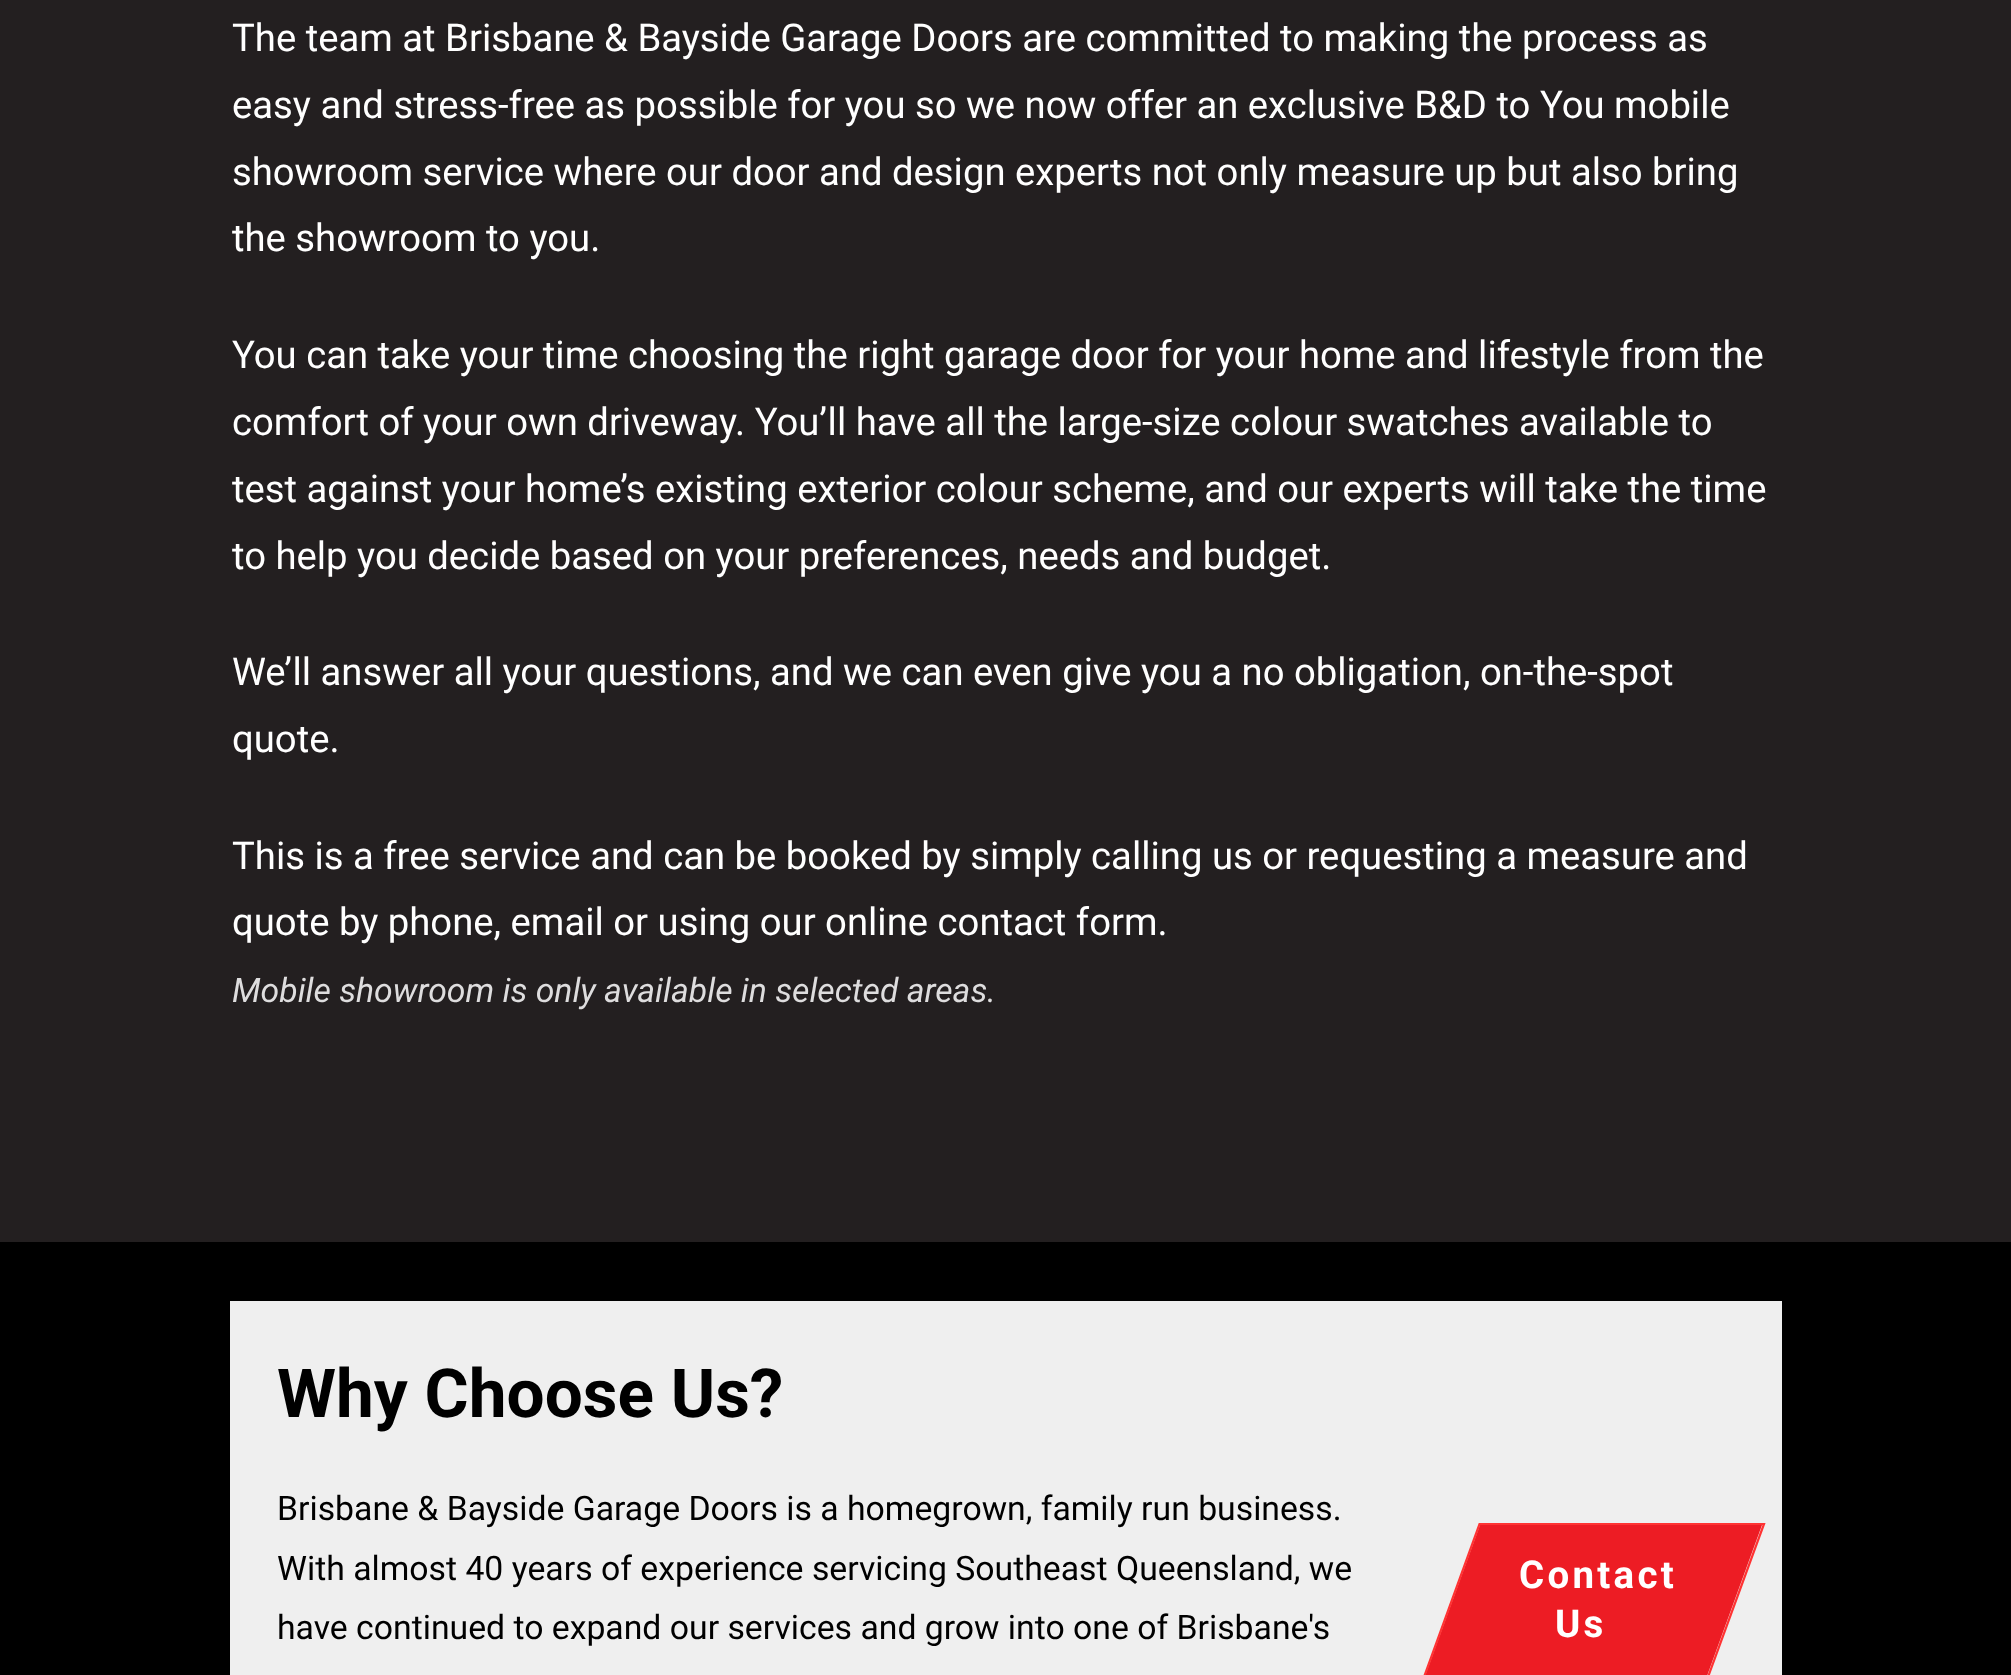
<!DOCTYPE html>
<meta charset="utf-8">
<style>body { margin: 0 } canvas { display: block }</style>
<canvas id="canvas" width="2011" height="1675"></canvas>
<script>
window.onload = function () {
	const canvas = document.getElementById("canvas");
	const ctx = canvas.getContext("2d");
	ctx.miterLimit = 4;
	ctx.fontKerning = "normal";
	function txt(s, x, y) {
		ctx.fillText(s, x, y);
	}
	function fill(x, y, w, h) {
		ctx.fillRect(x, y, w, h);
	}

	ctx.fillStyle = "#231F20";
	fill(0, 0, 2011, 1675);
	ctx.fillStyle = "#000000";
	fill(0, 1242, 2011, 433);
	ctx.fillStyle = "#EFEFEF";
	fill(230, 1301, 1552, 374);
	ctx.fillStyle = "#ED1C24";
	ctx.beginPath();
	ctx.moveTo(1480, 1525);
	ctx.lineTo(1762, 1525);
	ctx.lineTo(1707, 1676);
	ctx.lineTo(1425, 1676);
	ctx.closePath();
	ctx.fill();
	ctx.beginPath();
	ctx.moveTo(1479.5, 1524);
	ctx.lineTo(1764, 1524);
	ctx.lineTo(1708, 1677);
	ctx.lineTo(1424, 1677);
	ctx.closePath();
	ctx.strokeStyle = "#FF3333";
	ctx.lineWidth = 2.2;
	ctx.stroke();
	ctx.font = "38.25px Roboto";
	ctx.fillStyle = "#FFFFFF";
	txt("The team at Brisbane & Bayside Garage Doors are committed to making the process as", 232, 51);
	txt("easy and stress-free as possible for you so we now offer an exclusive B&D to You mobile", 232, 118);
	txt("showroom service where our door and design experts not only measure up but also bring", 232, 185);
	txt("the showroom to you.", 232, 251);
	txt("You can take your time choosing the right garage door for your home and lifestyle from the", 232, 368);
	txt("comfort of your own driveway. You’ll have all the large-size colour swatches available to", 232, 435);
	txt("test against your home’s existing exterior colour scheme, and our experts will take the time", 232, 502);
	txt("to help you decide based on your preferences, needs and budget.", 232, 569);
	txt("We’ll answer all your questions, and we can even give you a no obligation, on-the-spot", 232, 685);
	txt("quote.", 232, 752);
	txt("This is a free service and can be booked by simply calling us or requesting a measure and", 232, 869);
	txt("quote by phone, email or using our online contact form.", 232, 935);
	ctx.font = "italic 33.75px Roboto";
	ctx.fillStyle = "#DEDDDE";
	txt("Mobile showroom is only available in selected areas.", 232, 1002);
	ctx.font = "bold 67.5px Roboto";
	ctx.fillStyle = "#000000";
	txt("Why Choose Us?", 277, 1417);
	ctx.font = "33.75px Roboto";
	txt("Brisbane & Bayside Garage Doors is a homegrown, family run business.", 277, 1520);
	txt("With almost 40 years of experience servicing Southeast Queensland, we", 277, 1580);
	txt("have continued to expand our services and grow into one of Brisbane's", 277, 1639);
	ctx.letterSpacing = "3.25px";
	ctx.font = "bold 38.5px Roboto";
	ctx.fillStyle = "#FFFFFF";
	txt("Contact", 1519, 1588);
	ctx.letterSpacing = "3px";
	txt("Us", 1555, 1637);
};
</script>
